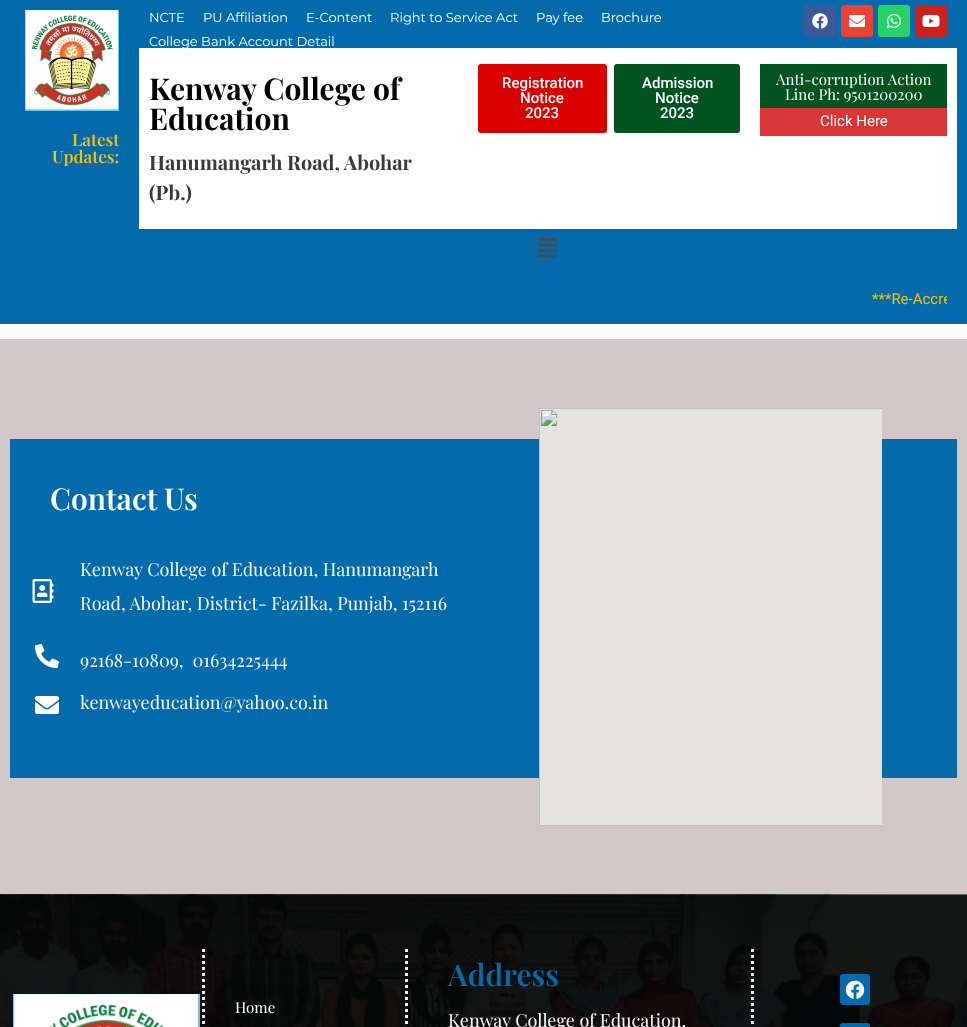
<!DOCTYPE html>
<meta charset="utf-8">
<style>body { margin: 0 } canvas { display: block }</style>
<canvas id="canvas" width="967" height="1027"></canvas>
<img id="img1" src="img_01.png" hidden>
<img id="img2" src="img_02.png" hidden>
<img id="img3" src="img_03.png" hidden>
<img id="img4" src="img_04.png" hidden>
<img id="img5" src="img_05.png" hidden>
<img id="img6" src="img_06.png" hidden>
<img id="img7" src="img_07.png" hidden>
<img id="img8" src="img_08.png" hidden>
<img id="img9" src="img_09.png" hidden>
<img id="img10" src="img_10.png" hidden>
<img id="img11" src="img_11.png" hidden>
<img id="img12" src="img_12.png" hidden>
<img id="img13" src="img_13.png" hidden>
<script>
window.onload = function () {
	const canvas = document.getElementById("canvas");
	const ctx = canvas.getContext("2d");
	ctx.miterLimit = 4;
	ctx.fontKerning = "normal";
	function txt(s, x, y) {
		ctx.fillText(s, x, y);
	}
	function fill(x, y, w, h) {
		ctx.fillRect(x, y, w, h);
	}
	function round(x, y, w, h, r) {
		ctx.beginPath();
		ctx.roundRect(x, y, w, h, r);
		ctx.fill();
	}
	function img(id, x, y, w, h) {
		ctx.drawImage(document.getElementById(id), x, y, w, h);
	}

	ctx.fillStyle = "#FFFFFF";
	fill(0, 0, 967, 1027);
	ctx.fillStyle = "#036AAB";
	fill(0, 0, 967, 324);
	img("img1", 25, 10, 94, 101);
	ctx.fillStyle = "#3B5998";
	round(804, 5, 32, 32, 3);
	img("img2", 812, 13, 16, 16);
	ctx.fillStyle = "#EA4335";
	round(841, 5, 32, 32, 3);
	img("img3", 849, 15, 16, 12);
	ctx.fillStyle = "#25D366";
	round(878, 5, 32, 32, 3);
	img("img4", 887, 14, 14, 14);
	ctx.fillStyle = "#CD201F";
	round(915, 5, 32, 32, 3);
	img("img5", 922, 15, 18, 12);
	ctx.fillStyle = "#FFFFFF";
	fill(139, 48, 818, 181);
	ctx.fillStyle = "#DA0101";
	round(478, 64, 129, 69, 3);
	ctx.fillStyle = "#015420";
	round(614, 64, 126, 69, 3);
	fill(760, 64, 187, 44);
	ctx.fillStyle = "#D93737";
	fill(760, 108, 187, 28);
	img("img6", 538, 238, 20, 20);
	ctx.fillStyle = "#CFC8C8";
	fill(0, 893, 967, 1);
	ctx.fillStyle = "#D1C9C9";
	fill(0, 339, 967, 554);
	ctx.fillStyle = "#036AAB";
	fill(10, 439, 947, 339);
	img("img7", 539, 408, 343, 418);
	img("img8", 32, 579, 22, 24);
	img("img9", 35, 644, 24, 24);
	img("img10", 35, 696, 24, 18);
	img("img11", 0, 894, 967, 133);
	ctx.beginPath();
	ctx.moveTo(203.5, 949);
	ctx.lineTo(203.5, 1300);
	ctx.strokeStyle = "#F8F0F0";
	ctx.lineWidth = 3;
	ctx.setLineDash([3, 3]);
	ctx.stroke();
	img("img12", 13, 994, 187, 33);
	ctx.beginPath();
	ctx.moveTo(406.5, 949);
	ctx.lineTo(406.5, 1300);
	ctx.strokeStyle = "#FFEEEE";
	ctx.stroke();
	ctx.beginPath();
	ctx.moveTo(752.5, 949);
	ctx.lineTo(752.5, 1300);
	ctx.strokeStyle = "#EEE0E0";
	ctx.stroke();
	round(840, 974, 30, 31, 3);
	img("img13", 845, 980, 20, 19);
	round(840, 1023, 30, 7, 3);
	ctx.font = "600 17px Playfair Display";
	ctx.fillStyle = "#F7C008";
	txt("Latest", 72, 146);
	txt("Updates:", 52, 163);
	ctx.font = "13px Montserrat";
	ctx.fillStyle = "#FFFFFF";
	txt("NCTE", 149, 22);
	txt("PU Affiliation", 203, 22);
	txt("E-Content", 306, 22);
	txt("Right to Service Act", 390, 22);
	txt("Pay fee", 536, 22);
	txt("Brochure", 601, 22);
	txt("College Bank Account Detail", 149, 46);
	ctx.font = "bold 30px Playfair Display";
	ctx.fillStyle = "#000000";
	txt("Kenway College of", 149, 100);
	txt("Education", 149, 130);
	ctx.font = "bold 20px Playfair Display";
	ctx.fillStyle = "#3A3A3A";
	txt("Hanumangarh Road, Abohar", 149, 170);
	txt("(Pb.)", 149, 200);
	ctx.font = "500 15px Roboto";
	ctx.fillStyle = "#FFFFFF";
	txt("Registration", 502, 88);
	txt("Notice", 520, 103);
	txt("2023", 525, 118);
	txt("Admission", 642, 88);
	txt("Notice", 655, 103);
	txt("2023", 660, 118);
	ctx.font = "15px Playfair Display";
	txt("Anti-corruption Action", 776, 85);
	txt("Line Ph: 9501200200", 785, 100);
	ctx.font = "15px Roboto";
	txt("Click Here", 820, 126);
	ctx.save();
	ctx.beginPath();
	ctx.rect(149, 286, 798, 30);
	ctx.clip();
	ctx.fillStyle = "#F7C008";
	txt("***Re-Accre", 872, 304);
	ctx.restore();
	ctx.font = "600 30px Playfair Display";
	txt("Contact Us", 50, 510);
	ctx.font = "18px Playfair Display";
	ctx.fillStyle = "#FCF9F9";
	txt("Kenway College of Education, Hanumangarh", 80, 576);
	txt("Road, Abohar, District- Fazilka, Punjab, 152116", 80, 610);
	txt("92168-10809,  01634225444", 80, 667);
	txt("kenwayeducation@yahoo.co.in", 80, 709);
	ctx.font = "15px Playfair Display";
	ctx.fillStyle = "#FFFFFF";
	txt("Home", 235, 1013);
	ctx.font = "600 30px Playfair Display";
	ctx.fillStyle = "#036AAB";
	txt("Address", 448, 986);
	ctx.font = "18px Playfair Display";
	ctx.fillStyle = "#FFFFFF";
	txt("Kenway College of Education,", 448, 1027);
};
</script>
